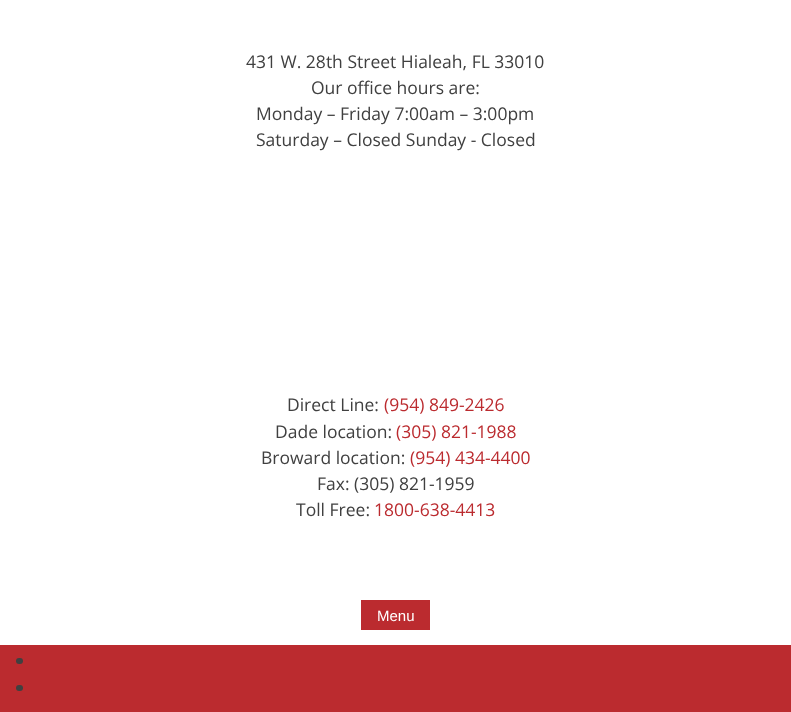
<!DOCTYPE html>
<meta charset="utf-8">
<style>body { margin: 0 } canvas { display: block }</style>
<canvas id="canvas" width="791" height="712"></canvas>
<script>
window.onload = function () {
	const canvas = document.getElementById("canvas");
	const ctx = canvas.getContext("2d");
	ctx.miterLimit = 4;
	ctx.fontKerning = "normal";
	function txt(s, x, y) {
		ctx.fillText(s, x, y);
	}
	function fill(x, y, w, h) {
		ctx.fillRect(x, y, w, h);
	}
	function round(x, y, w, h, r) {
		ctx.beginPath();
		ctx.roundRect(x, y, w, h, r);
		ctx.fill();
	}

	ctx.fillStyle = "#FFFFFF";
	fill(0, 0, 791, 712);
	ctx.fillStyle = "#BB2B2F";
	fill(361, 600, 69, 30);
	fill(0, 645, 791, 67);
	ctx.fillStyle = "#404040";
	round(16, 658, 7, 6, 3);
	round(16, 685, 7, 6, 3);
	ctx.font = "17.5px Open Sans";
	txt("431 W. 28th Street Hialeah, FL 33010", 246, 68);
	txt("Our office hours are:", 311, 94);
	txt("Monday – Friday 7:00am – 3:00pm", 256, 120);
	txt("Saturday – Closed Sunday - Closed", 256, 146);
	txt("Direct Line:", 287, 411);
	ctx.fillStyle = "#BB2B2F";
	txt("(954) 849-2426", 384, 411);
	ctx.fillStyle = "#404040";
	txt("Dade location:", 275, 438);
	ctx.fillStyle = "#BB2B2F";
	txt("(305) 821-1988", 396, 438);
	ctx.fillStyle = "#404040";
	txt("Broward location:", 261, 464);
	ctx.fillStyle = "#BB2B2F";
	txt("(954) 434-4400", 410, 464);
	ctx.fillStyle = "#404040";
	txt("Fax: (305) 821-1959", 317, 490);
	txt("Toll Free:", 296, 516);
	ctx.fillStyle = "#BB2B2F";
	txt("1800-638-4413", 374, 516);
	ctx.font = "15px Liberation Sans";
	ctx.fillStyle = "#FFFFFF";
	txt("Menu", 377, 621);
};
</script>
